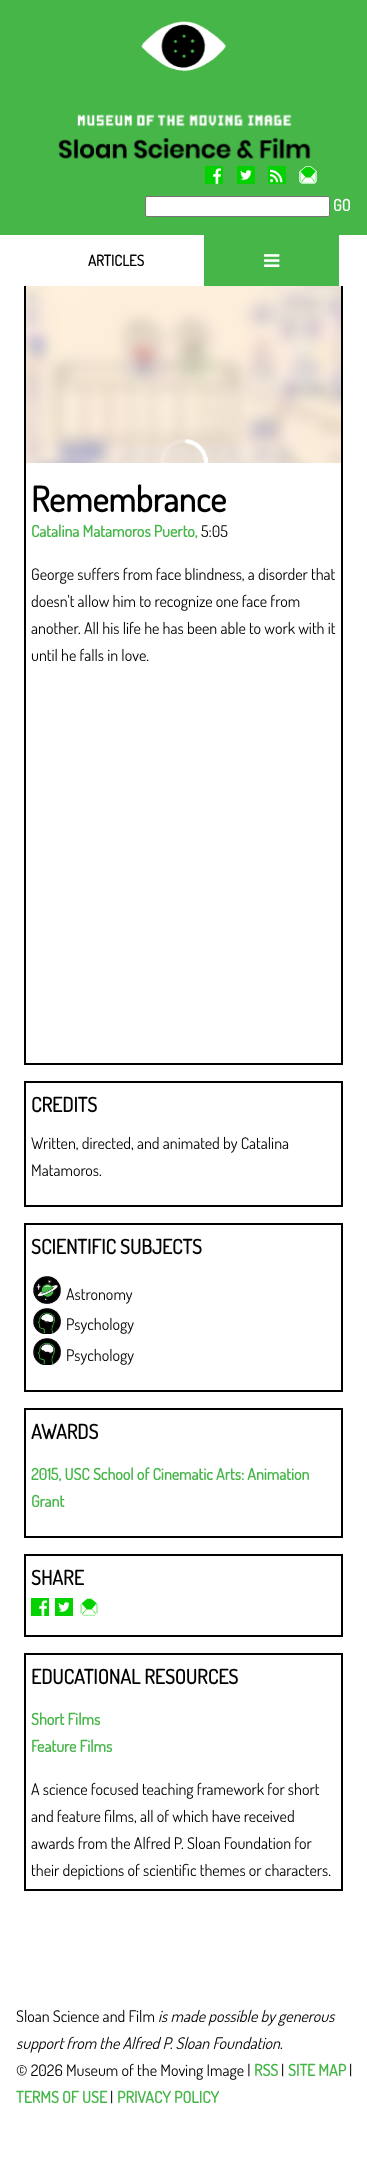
<!DOCTYPE html>
<meta charset="utf-8">
<style>body { margin: 0 } canvas { display: block }</style>
<canvas id="canvas" width="367" height="2172"></canvas>
<img id="img1" src="img_01.png" hidden>
<img id="img2" src="img_02.png" hidden>
<img id="img3" src="img_03.png" hidden>
<img id="img4" src="img_04.png" hidden>
<img id="img5" src="img_05.png" hidden>
<img id="img6" src="img_06.png" hidden>
<img id="img7" src="img_07.png" hidden>
<img id="img8" src="img_08.png" hidden>
<img id="img9" src="img_09.png" hidden>
<img id="img10" src="img_10.png" hidden>
<img id="img11" src="img_11.png" hidden>
<img id="img12" src="img_12.png" hidden>
<script>
window.onload = function () {
	const canvas = document.getElementById("canvas");
	const ctx = canvas.getContext("2d");
	ctx.miterLimit = 4;
	ctx.fontKerning = "normal";
	function txt(s, x, y) {
		ctx.fillText(s, x, y);
	}
	function fill(x, y, w, h) {
		ctx.fillRect(x, y, w, h);
	}
	function img(id, x, y, w, h) {
		ctx.drawImage(document.getElementById(id), x, y, w, h);
	}

	ctx.fillStyle = "#FFFFFF";
	fill(0, 0, 367, 2172);
	ctx.fillStyle = "#47B649";
	fill(0, 0, 367, 235);
	img("img1", 141, 21, 85, 51);
	img("img2", 58, 114, 253, 45);
	img("img3", 205, 166, 18, 18);
	img("img4", 237, 166, 18, 18);
	img("img5", 268, 166, 18, 18);
	img("img6", 299, 166, 18, 18);
	ctx.fillStyle = "#FFFFFF";
	ctx.beginPath();
	ctx.roundRect(145.5, 196.5, 184, 20, 1.5);
	ctx.fill();
	ctx.strokeStyle = "#767676";
	ctx.stroke();
	ctx.strokeStyle = "#000000";
	ctx.lineWidth = 2;
	ctx.strokeRect(25, 285, 317, 779);
	fill(24, 284, 319, 2);
	ctx.fillStyle = "#47B649";
	fill(204, 235, 135, 51);
	img("img7", 264, 254, 16, 13);
	img("img8", 26, 286, 315, 177);
	ctx.strokeRect(25, 1082, 317, 124);
	ctx.strokeRect(25, 1224, 317, 167);
	img("img9", 33, 1276, 28, 28);
	img("img10", 33, 1308, 28, 26);
	img("img11", 33, 1338, 28, 27);
	ctx.strokeRect(25, 1409, 317, 128);
	ctx.strokeRect(25, 1555, 317, 81);
	img("img3", 31, 1598, 18, 18);
	img("img4", 55, 1598, 18, 18);
	img("img12", 80, 1598, 18, 18);
	ctx.strokeRect(25, 1654, 317, 236);
	ctx.font = "bold 16px Dosis";
	ctx.fillStyle = "#FFFFFF";
	txt("GO", 333, 211);
	ctx.font = "bold 15px Dosis";
	ctx.fillStyle = "#000000";
	txt("ARTICLES", 88, 266);
	ctx.font = "bold 35px Dosis";
	txt("Remembrance", 31, 512);
	ctx.font = "bold 16px Dosis";
	ctx.fillStyle = "#47B649";
	txt("Catalina Matamoros Puerto,", 31, 537);
	ctx.font = "16px Dosis";
	ctx.fillStyle = "#000000";
	txt("5:05", 201, 537);
	txt("George suffers from face blindness, a disorder that", 31, 580);
	txt("doesn't allow him to recognize one face from", 31, 607);
	txt("another. All his life he has been able to work with it", 31, 634);
	txt("until he falls in love.", 31, 661);
	ctx.font = "bold 20px Dosis";
	txt("CREDITS", 31, 1112);
	ctx.font = "16px Dosis";
	txt("Written, directed, and animated by Catalina", 31, 1149);
	txt("Matamoros.", 31, 1176);
	ctx.font = "bold 20px Dosis";
	txt("SCIENTIFIC SUBJECTS", 31, 1254);
	ctx.font = "16px Dosis";
	txt("Astronomy", 66, 1300);
	txt("Psychology", 66, 1330);
	txt("Psychology", 66, 1361);
	ctx.font = "bold 20px Dosis";
	txt("AWARDS", 31, 1439);
	ctx.font = "bold 16px Dosis";
	ctx.fillStyle = "#47B649";
	txt("2015, USC School of Cinematic Arts: Animation", 31, 1480);
	txt("Grant", 31, 1507);
	ctx.font = "bold 20px Dosis";
	ctx.fillStyle = "#000000";
	txt("SHARE", 31, 1585);
	txt("EDUCATIONAL RESOURCES", 31, 1684);
	ctx.font = "bold 16px Dosis";
	ctx.fillStyle = "#47B649";
	txt("Short Films", 31, 1725);
	txt("Feature Films", 31, 1752);
	ctx.font = "16px Dosis";
	ctx.fillStyle = "#000000";
	txt("A science focused teaching framework for short", 31, 1795);
	txt("and feature films, all of which have received", 31, 1822);
	txt("awards from the Alfred P. Sloan Foundation for", 31, 1849);
	txt("their depictions of scientific themes or characters.", 31, 1876);
	txt("Sloan Science and Film", 16, 2022);
	ctx.font = "italic 16px Dosis";
	txt("is made possible by generous", 158, 2022);
	txt("support from the Alfred P. Sloan Foundation", 16, 2049);
	ctx.font = "16px Dosis";
	txt(".", 280, 2049);
	txt("© 2026 Museum of the Moving Image |", 16, 2076);
	ctx.font = "bold 16px Dosis";
	ctx.fillStyle = "#47B649";
	txt("RSS", 254, 2076);
	ctx.font = "16px Dosis";
	ctx.fillStyle = "#000000";
	txt("|", 281, 2076);
	ctx.font = "bold 16px Dosis";
	ctx.fillStyle = "#47B649";
	txt("SITE MAP", 288, 2076);
	ctx.font = "16px Dosis";
	ctx.fillStyle = "#000000";
	txt("|", 349, 2076);
	ctx.font = "bold 16px Dosis";
	ctx.fillStyle = "#47B649";
	txt("TERMS OF USE", 16, 2103);
	ctx.font = "16px Dosis";
	ctx.fillStyle = "#000000";
	txt("|", 110, 2103);
	ctx.font = "bold 16px Dosis";
	ctx.fillStyle = "#47B649";
	txt("PRIVACY POLICY", 117, 2103);
};
</script>
